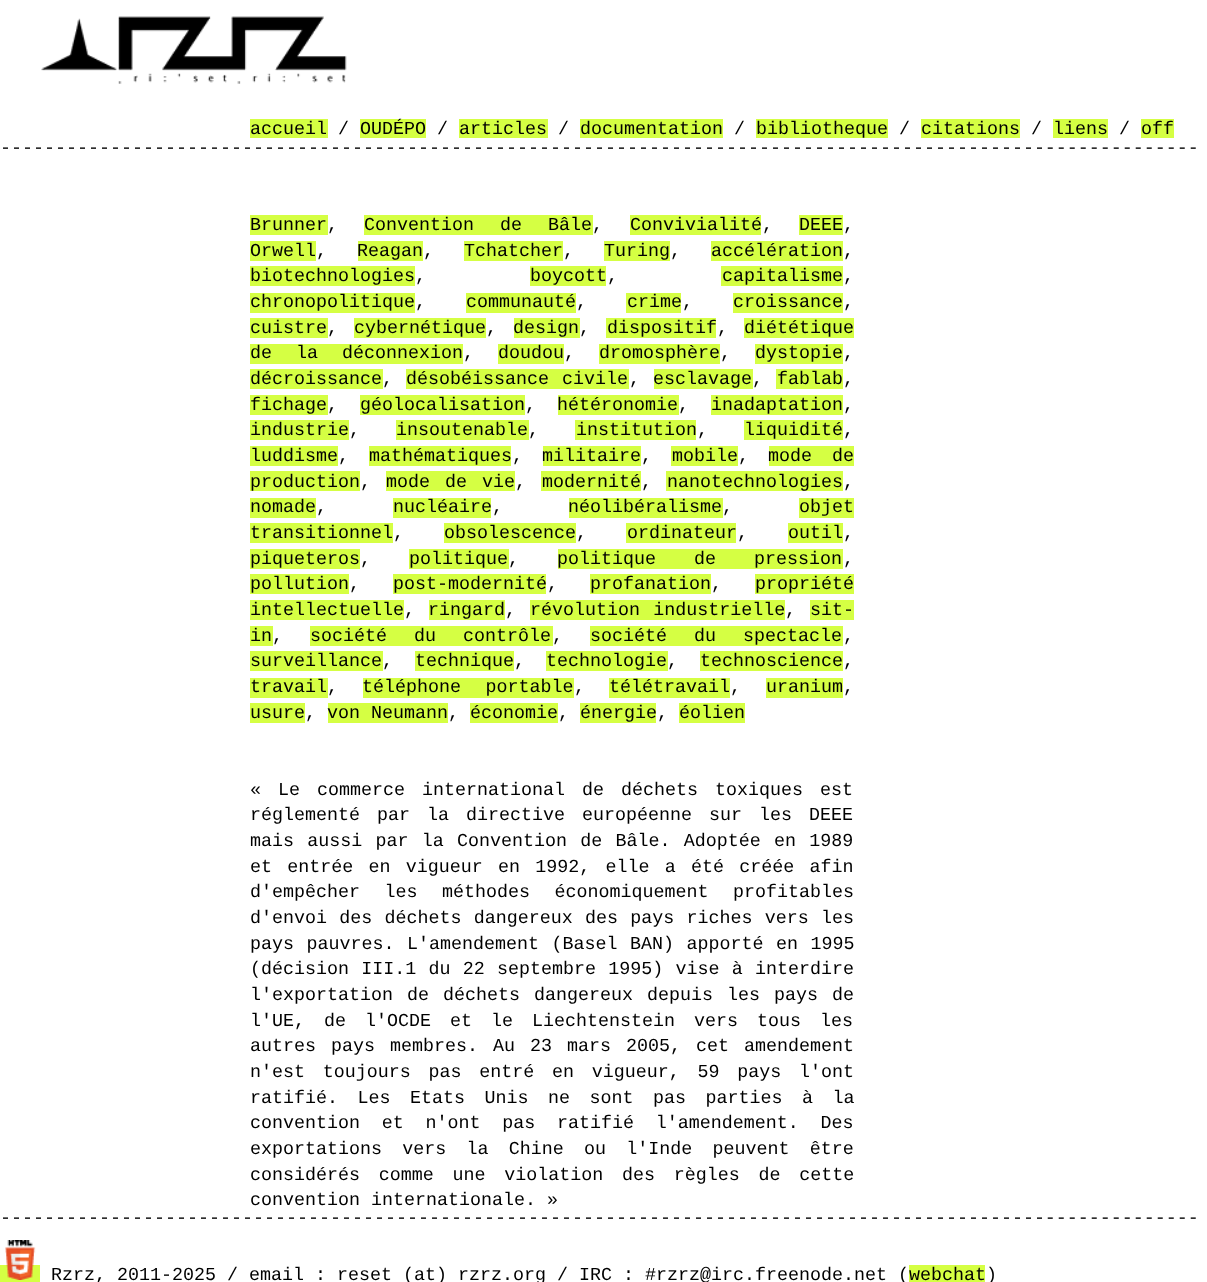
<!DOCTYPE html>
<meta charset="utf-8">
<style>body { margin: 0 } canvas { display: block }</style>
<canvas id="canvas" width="1207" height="1282"></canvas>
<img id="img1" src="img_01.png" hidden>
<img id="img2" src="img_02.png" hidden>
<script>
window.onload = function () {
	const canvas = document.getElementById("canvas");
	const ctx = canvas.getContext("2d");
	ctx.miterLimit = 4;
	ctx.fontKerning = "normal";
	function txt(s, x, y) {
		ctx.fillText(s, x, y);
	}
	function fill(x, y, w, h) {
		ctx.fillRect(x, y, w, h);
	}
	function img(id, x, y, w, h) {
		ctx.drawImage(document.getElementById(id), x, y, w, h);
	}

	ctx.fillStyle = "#FFFFFF";
	fill(0, 0, 1207, 1282);
	img("img1", 41, 16, 306, 68);
	ctx.fillStyle = "#D5FF43";
	fill(250, 119, 78, 19);
	fill(360, 119, 66, 19);
	fill(459, 119, 89, 19);
	fill(580, 119, 143, 19);
	fill(756, 119, 132, 19);
	fill(921, 119, 99, 19);
	fill(1053, 119, 55, 19);
	fill(1141, 119, 33, 19);
	fill(250, 215, 78, 20);
	fill(364, 215, 229, 20);
	fill(630, 215, 131, 20);
	fill(799, 215, 44, 20);
	fill(250, 241, 66, 20);
	fill(358, 241, 65, 20);
	fill(464, 241, 99, 20);
	fill(604, 241, 66, 20);
	fill(711, 241, 132, 20);
	fill(250, 266, 165, 20);
	fill(530, 266, 76, 20);
	fill(721, 266, 122, 20);
	fill(250, 293, 165, 20);
	fill(466, 293, 110, 20);
	fill(626, 293, 55, 20);
	fill(733, 293, 110, 20);
	fill(250, 318, 78, 20);
	fill(354, 318, 132, 20);
	fill(514, 318, 66, 20);
	fill(606, 318, 110, 20);
	fill(744, 318, 110, 20);
	fill(250, 344, 213, 20);
	fill(498, 344, 66, 20);
	fill(599, 344, 121, 20);
	fill(755, 344, 88, 20);
	fill(250, 369, 133, 20);
	fill(406, 369, 223, 20);
	fill(654, 369, 99, 20);
	fill(776, 369, 67, 20);
	fill(250, 395, 78, 20);
	fill(360, 395, 165, 20);
	fill(558, 395, 121, 20);
	fill(711, 395, 132, 20);
	fill(250, 420, 99, 20);
	fill(396, 420, 133, 20);
	fill(575, 420, 121, 20);
	fill(744, 420, 99, 20);
	fill(250, 446, 88, 20);
	fill(369, 446, 142, 20);
	fill(543, 446, 98, 20);
	fill(671, 446, 67, 20);
	fill(769, 446, 85, 20);
	fill(250, 471, 110, 20);
	fill(386, 471, 129, 20);
	fill(541, 471, 100, 20);
	fill(666, 471, 177, 20);
	fill(250, 498, 66, 20);
	fill(393, 498, 98, 20);
	fill(569, 498, 154, 20);
	fill(799, 498, 55, 20);
	fill(250, 523, 143, 20);
	fill(444, 523, 132, 20);
	fill(626, 523, 110, 20);
	fill(788, 523, 55, 20);
	fill(250, 549, 110, 20);
	fill(409, 549, 100, 20);
	fill(558, 549, 285, 20);
	fill(250, 574, 99, 20);
	fill(393, 574, 153, 20);
	fill(590, 574, 121, 20);
	fill(755, 574, 99, 20);
	fill(250, 600, 154, 20);
	fill(429, 600, 76, 20);
	fill(530, 600, 255, 20);
	fill(810, 600, 44, 20);
	fill(250, 626, 23, 20);
	fill(310, 626, 243, 20);
	fill(590, 626, 253, 20);
	fill(250, 651, 133, 20);
	fill(415, 651, 99, 20);
	fill(546, 651, 122, 20);
	fill(700, 651, 143, 20);
	fill(250, 678, 78, 20);
	fill(363, 678, 211, 20);
	fill(609, 678, 121, 20);
	fill(766, 678, 77, 20);
	fill(250, 703, 55, 20);
	fill(328, 703, 120, 20);
	fill(470, 703, 88, 20);
	fill(580, 703, 76, 20);
	fill(679, 703, 66, 20);
	fill(0, 1265, 40, 17);
	img("img2", 5, 1240, 31, 40);
	fill(909, 1265, 76, 17);
	ctx.font = "18.33px Liberation Mono";
	ctx.fillStyle = "#000000";
	txt("accueil /", 250, 134);
	txt("OUDÉPO /", 360, 134);
	txt("articles /", 459, 134);
	txt("documentation /", 580, 134);
	txt("bibliotheque /", 756, 134);
	txt("citations /", 921, 134);
	txt("liens /", 1053, 134);
	txt("off", 1141, 134);
	txt("-------------------------------------------------------------------------------------------------------------", 0, 153);
	txt("Brunner,", 250, 230);
	ctx.wordSpacing = "15px";
	txt("Convention de Bâle", 364, 230);
	ctx.wordSpacing = "0px";
	txt(",", 592, 230);
	txt("Convivialité,", 630, 230);
	txt("DEEE,", 799, 230);
	txt("Orwell,", 250, 256);
	txt("Reagan,", 357, 256);
	txt("Tchatcher,", 464, 256);
	txt("Turing,", 604, 256);
	txt("accélération,", 711, 256);
	txt("biotechnologies,", 250, 281);
	txt("boycott,", 530, 281);
	txt("capitalisme,", 722, 281);
	txt("chronopolitique,", 250, 307);
	txt("communauté,", 466, 307);
	txt("crime,", 627, 307);
	txt("croissance,", 733, 307);
	txt("cuistre,", 250, 333);
	txt("cybernétique,", 354, 333);
	txt("design,", 513, 333);
	txt("dispositif,", 607, 333);
	txt("diététique", 744, 333);
	ctx.wordSpacing = "13px";
	txt("de la déconnexion", 250, 358);
	ctx.wordSpacing = "0px";
	txt(",", 463, 358);
	txt("doudou,", 498, 358);
	txt("dromosphère,", 599, 358);
	txt("dystopie,", 755, 358);
	txt("décroissance,", 250, 384);
	ctx.wordSpacing = "2px";
	txt("désobéissance civile", 406, 384);
	ctx.wordSpacing = "0px";
	txt(",", 629, 384);
	txt("esclavage,", 653, 384);
	txt("fablab,", 777, 384);
	txt("fichage,", 250, 410);
	txt("géolocalisation,", 360, 410);
	txt("hétéronomie,", 557, 410);
	txt("inadaptation,", 711, 410);
	txt("industrie,", 250, 435);
	txt("insoutenable,", 396, 435);
	txt("institution,", 576, 435);
	txt("liquidité,", 744, 435);
	txt("luddisme,", 250, 461);
	txt("mathématiques,", 369, 461);
	txt("militaire,", 542, 461);
	txt("mobile,", 672, 461);
	ctx.wordSpacing = "9px";
	txt("mode de", 768, 461);
	ctx.wordSpacing = "0px";
	txt("production,", 250, 487);
	ctx.wordSpacing = "4px";
	txt("mode de vie", 386, 487);
	ctx.wordSpacing = "0px";
	txt(",", 515, 487);
	txt("modernité,", 542, 487);
	txt("nanotechnologies,", 667, 487);
	txt("nomade,", 250, 512);
	txt("nucléaire,", 393, 512);
	txt("néolibéralisme,", 568, 512);
	txt("objet", 799, 512);
	txt("transitionnel,", 250, 538);
	txt("obsolescence,", 444, 538);
	txt("ordinateur,", 627, 538);
	txt("outil,", 788, 538);
	txt("piqueteros,", 250, 564);
	txt("politique,", 409, 564);
	ctx.wordSpacing = "27px";
	txt("politique de pression", 557, 564);
	ctx.wordSpacing = "0px";
	txt(",", 843, 564);
	txt("pollution,", 250, 589);
	txt("post-modernité,", 393, 589);
	txt("profanation,", 590, 589);
	txt("propriété", 755, 589);
	txt("intellectuelle,", 250, 615);
	txt("ringard,", 428, 615);
	ctx.wordSpacing = "2.25px";
	txt("révolution industrielle", 530, 615);
	ctx.wordSpacing = "0px";
	txt(",", 785, 615);
	txt("sit-", 810, 615);
	txt("in,", 250, 641);
	ctx.wordSpacing = "16px";
	txt("société du contrôle", 310, 641);
	ctx.wordSpacing = "0px";
	txt(",", 552, 641);
	ctx.wordSpacing = "16px";
	txt("société du spectacle", 590, 641);
	ctx.wordSpacing = "0px";
	txt(",", 843, 641);
	txt("surveillance,", 250, 666);
	txt("technique,", 415, 666);
	txt("technologie,", 546, 666);
	txt("technoscience,", 700, 666);
	txt("travail,", 250, 692);
	ctx.wordSpacing = "13.5px";
	txt("téléphone portable", 362, 692);
	ctx.wordSpacing = "0px";
	txt(",", 574, 692);
	txt("télétravail,", 609, 692);
	txt("uranium,", 766, 692);
	txt("usure,", 250, 718);
	txt("von Neumann,", 327, 718);
	txt("économie,", 470, 718);
	txt("énergie,", 580, 718);
	txt("éolien", 679, 718);
	ctx.wordSpacing = "6px";
	txt("« Le commerce international de déchets toxiques est", 250, 795);
	txt("réglementé par la directive européenne sur les DEEE", 250, 820);
	ctx.wordSpacing = "2.25px";
	txt("mais aussi par la Convention de Bâle. Adoptée en 1989", 250, 846);
	ctx.wordSpacing = "4.25px";
	txt("et entrée en vigueur en 1992, elle a été créée afin", 250, 872);
	ctx.wordSpacing = "13.5px";
	txt("d'empêcher les méthodes économiquement profitables", 250, 897);
	ctx.wordSpacing = "1.25px";
	txt("d'envoi des déchets dangereux des pays riches vers les", 250, 923);
	ctx.wordSpacing = "1.5px";
	txt("pays pauvres. L'amendement (Basel BAN) apporté en 1995", 250, 949);
	ctx.wordSpacing = "1.25px";
	txt("(décision III.1 du 22 septembre 1995) vise à interdire", 250, 974);
	ctx.wordSpacing = "3px";
	txt("l'exportation de déchets dangereux depuis les pays de", 250, 1000);
	ctx.wordSpacing = "8px";
	txt("l'UE, de l'OCDE et le Liechtenstein vers tous les", 250, 1026);
	ctx.wordSpacing = "4px";
	txt("autres pays membres. Au 23 mars 2005, cet amendement", 250, 1051);
	ctx.wordSpacing = "6.75px";
	txt("n'est toujours pas entré en vigueur, 59 pays l'ont", 250, 1077);
	ctx.wordSpacing = "8.5px";
	txt("ratifié. Les Etats Unis ne sont pas parties à la", 250, 1103);
	ctx.wordSpacing = "10.75px";
	txt("convention et n'ont pas ratifié l'amendement. Des", 250, 1128);
	ctx.wordSpacing = "9.25px";
	txt("exportations vers la Chine ou l'Inde peuvent être", 250, 1154);
	ctx.wordSpacing = "7.75px";
	txt("considérés comme une violation des règles de cette", 250, 1180);
	ctx.wordSpacing = "0px";
	txt("convention internationale. »", 250, 1205);
	txt("-------------------------------------------------------------------------------------------------------------", 0, 1223);
	txt("Rzrz, 2011-2025 / email : reset (at) rzrz.org / IRC : #rzrz@irc.freenode.net (", 51, 1280);
	txt("webchat)", 909, 1280);
};
</script>
